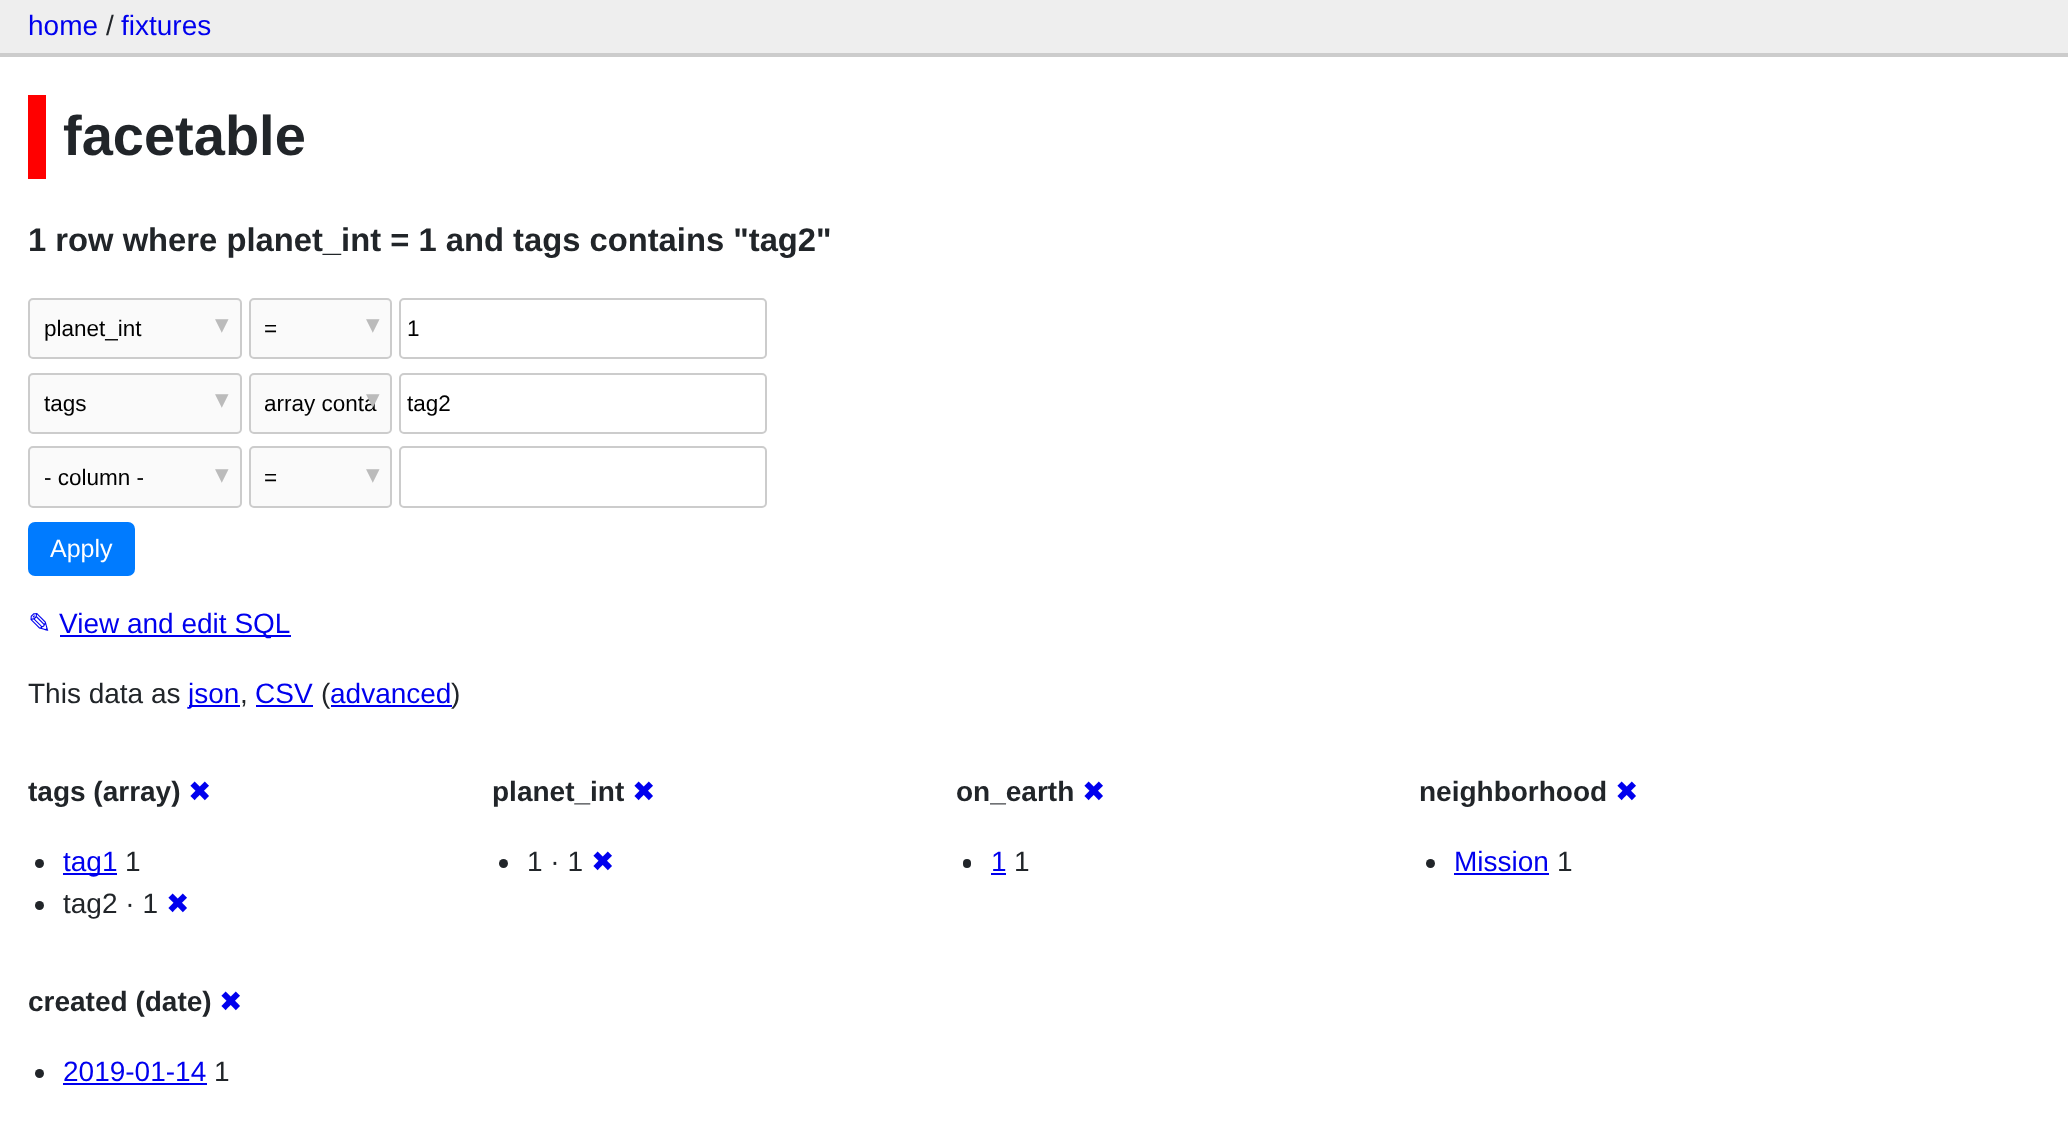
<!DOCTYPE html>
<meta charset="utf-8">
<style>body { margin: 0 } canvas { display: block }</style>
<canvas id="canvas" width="2068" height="1122"></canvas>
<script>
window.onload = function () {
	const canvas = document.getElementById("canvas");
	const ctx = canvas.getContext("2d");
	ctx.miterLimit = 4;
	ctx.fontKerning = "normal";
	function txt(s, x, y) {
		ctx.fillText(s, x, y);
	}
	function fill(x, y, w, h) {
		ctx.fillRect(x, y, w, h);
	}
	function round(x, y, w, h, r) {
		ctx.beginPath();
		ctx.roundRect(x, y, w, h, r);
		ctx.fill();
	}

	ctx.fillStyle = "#FFFFFF";
	fill(0, 0, 2068, 1122);
	ctx.fillStyle = "#EEEEEE";
	fill(0, 0, 2068, 53);
	ctx.fillStyle = "#CCCCCC";
	fill(0, 53, 2068, 4);
	ctx.fillStyle = "#FF0000";
	fill(28, 95, 18, 84);
	ctx.fillStyle = "#FAFAFA";
	ctx.beginPath();
	ctx.roundRect(29, 299, 212, 59, 4);
	ctx.fill();
	ctx.strokeStyle = "#CCCCCC";
	ctx.lineWidth = 2;
	ctx.stroke();
	ctx.beginPath();
	ctx.roundRect(250, 299, 141, 59, 4);
	ctx.fill();
	ctx.stroke();
	ctx.beginPath();
	ctx.roundRect(400, 299, 366, 59, 4);
	ctx.stroke();
	ctx.beginPath();
	ctx.roundRect(29, 374, 212, 59, 4);
	ctx.fill();
	ctx.stroke();
	ctx.beginPath();
	ctx.roundRect(250, 374, 141, 59, 4);
	ctx.fill();
	ctx.stroke();
	ctx.beginPath();
	ctx.roundRect(400, 374, 366, 59, 4);
	ctx.stroke();
	ctx.beginPath();
	ctx.roundRect(29, 447, 212, 60, 4);
	ctx.fill();
	ctx.stroke();
	ctx.beginPath();
	ctx.roundRect(250, 447, 141, 60, 4);
	ctx.fill();
	ctx.stroke();
	ctx.beginPath();
	ctx.roundRect(400, 447, 366, 60, 4);
	ctx.stroke();
	ctx.fillStyle = "#007BFF";
	ctx.beginPath();
	ctx.roundRect(29, 523, 105, 52, 6);
	ctx.fill();
	ctx.strokeStyle = "#007BFF";
	ctx.stroke();
	ctx.fillStyle = "#0000EE";
	fill(60, 635, 231, 2);
	fill(189, 705, 51, 2);
	fill(256, 705, 57, 2);
	fill(331, 705, 121, 2);
	ctx.fillStyle = "#212529";
	ctx.beginPath();
	ctx.arc(39.5, 863.5, 4.5, 0, Math.PI * 2);
	ctx.fill();
	ctx.fillStyle = "#0000EE";
	fill(63, 873, 54, 2);
	ctx.fillStyle = "#212529";
	ctx.beginPath();
	ctx.arc(39.5, 905.5, 4.5, 0, Math.PI * 2);
	ctx.fill();
	ctx.beginPath();
	ctx.arc(503.5, 863.5, 4.5, 0, Math.PI * 2);
	ctx.fill();
	round(963, 859, 8, 9, 4);
	ctx.fillStyle = "#0000EE";
	fill(991, 873, 15, 2);
	ctx.fillStyle = "#212529";
	ctx.beginPath();
	ctx.arc(1430.5, 863.5, 4.5, 0, Math.PI * 2);
	ctx.fill();
	ctx.fillStyle = "#0000EE";
	fill(1454, 873, 95, 2);
	ctx.fillStyle = "#212529";
	ctx.beginPath();
	ctx.arc(39.5, 1073.5, 4.5, 0, Math.PI * 2);
	ctx.fill();
	ctx.fillStyle = "#0000EE";
	fill(63, 1083, 144, 2);
	ctx.font = "28px Liberation Sans";
	txt("home", 28, 35);
	ctx.fillStyle = "#212529";
	txt("/", 106, 35);
	ctx.fillStyle = "#0000EE";
	txt("fixtures", 121, 35);
	ctx.font = "bold 56px Liberation Sans";
	ctx.fillStyle = "#212529";
	txt("facetable", 63, 155);
	ctx.font = "bold 32.75px Liberation Sans";
	txt("1 row where planet_int = 1 and tags contains \"tag2\"", 28, 251);
	ctx.font = "22.5px Liberation Sans";
	ctx.fillStyle = "#000000";
	txt("planet_int", 44, 336);
	ctx.font = "27px DejaVu Sans";
	ctx.fillStyle = "#BBBBBB";
	txt("▾", 215, 333);
	ctx.font = "22.5px Liberation Sans";
	ctx.fillStyle = "#000000";
	txt("=", 264, 336);
	ctx.font = "27px DejaVu Sans";
	ctx.fillStyle = "#BBBBBB";
	txt("▾", 366, 333);
	ctx.font = "22.5px Liberation Sans";
	ctx.fillStyle = "#000000";
	txt("1", 407, 336);
	txt("tags", 44, 411);
	ctx.font = "27px DejaVu Sans";
	ctx.fillStyle = "#BBBBBB";
	txt("▾", 215, 408);
	ctx.font = "22.5px Liberation Sans";
	ctx.fillStyle = "#000000";
	txt("array conta", 264, 411);
	ctx.font = "27px DejaVu Sans";
	ctx.fillStyle = "#BBBBBB";
	txt("▾", 366, 408);
	ctx.font = "22.5px Liberation Sans";
	ctx.fillStyle = "#000000";
	txt("tag2", 407, 411);
	txt("- column -", 44, 485);
	ctx.font = "27px DejaVu Sans";
	ctx.fillStyle = "#BBBBBB";
	txt("▾", 215, 483);
	ctx.font = "22.5px Liberation Sans";
	ctx.fillStyle = "#000000";
	txt("=", 264, 485);
	ctx.font = "27px DejaVu Sans";
	ctx.fillStyle = "#BBBBBB";
	txt("▾", 366, 483);
	ctx.font = "25px Liberation Sans";
	ctx.fillStyle = "#FFFFFF";
	txt("Apply", 50, 557);
	ctx.font = "28px DejaVu Sans";
	ctx.fillStyle = "#0000EE";
	txt("✎", 28, 633);
	ctx.font = "28px Liberation Sans";
	txt("View and edit SQL", 59, 633);
	ctx.fillStyle = "#212529";
	txt("This data as", 28, 703);
	ctx.fillStyle = "#0000EE";
	txt("json", 188, 703);
	ctx.fillStyle = "#212529";
	txt(",", 240, 703);
	ctx.fillStyle = "#0000EE";
	txt("CSV", 255, 703);
	ctx.fillStyle = "#212529";
	txt("(", 321, 703);
	ctx.fillStyle = "#0000EE";
	txt("advanced", 330, 703);
	ctx.fillStyle = "#212529";
	txt(")", 451, 703);
	ctx.font = "bold 28px Liberation Sans";
	txt("tags (array)", 28, 801);
	ctx.font = "28px DejaVu Sans";
	ctx.fillStyle = "#0000EE";
	txt("✖", 188, 801);
	ctx.font = "28px Liberation Sans";
	txt("tag1", 63, 871);
	ctx.fillStyle = "#212529";
	txt("1", 125, 871);
	txt("tag2 · 1", 63, 913);
	ctx.font = "28px DejaVu Sans";
	ctx.fillStyle = "#0000EE";
	txt("✖", 166, 913);
	ctx.font = "bold 28px Liberation Sans";
	ctx.fillStyle = "#212529";
	txt("planet_int", 492, 801);
	ctx.font = "28px DejaVu Sans";
	ctx.fillStyle = "#0000EE";
	txt("✖", 632, 801);
	ctx.font = "28px Liberation Sans";
	ctx.fillStyle = "#212529";
	txt("1 · 1", 527, 871);
	ctx.font = "28px DejaVu Sans";
	ctx.fillStyle = "#0000EE";
	txt("✖", 591, 871);
	ctx.font = "bold 28px Liberation Sans";
	ctx.fillStyle = "#212529";
	txt("on_earth", 956, 801);
	ctx.font = "28px DejaVu Sans";
	ctx.fillStyle = "#0000EE";
	txt("✖", 1082, 801);
	ctx.font = "28px Liberation Sans";
	txt("1", 991, 871);
	ctx.fillStyle = "#212529";
	txt("1", 1014, 871);
	ctx.font = "bold 28px Liberation Sans";
	txt("neighborhood", 1419, 801);
	ctx.font = "28px DejaVu Sans";
	ctx.fillStyle = "#0000EE";
	txt("✖", 1615, 801);
	ctx.font = "28px Liberation Sans";
	txt("Mission", 1454, 871);
	ctx.fillStyle = "#212529";
	txt("1", 1557, 871);
	ctx.font = "bold 28px Liberation Sans";
	txt("created (date)", 28, 1011);
	ctx.font = "28px DejaVu Sans";
	ctx.fillStyle = "#0000EE";
	txt("✖", 219, 1011);
	ctx.font = "28px Liberation Sans";
	txt("2019-01-14", 63, 1081);
	ctx.fillStyle = "#212529";
	txt("1", 214, 1081);
};
</script>
